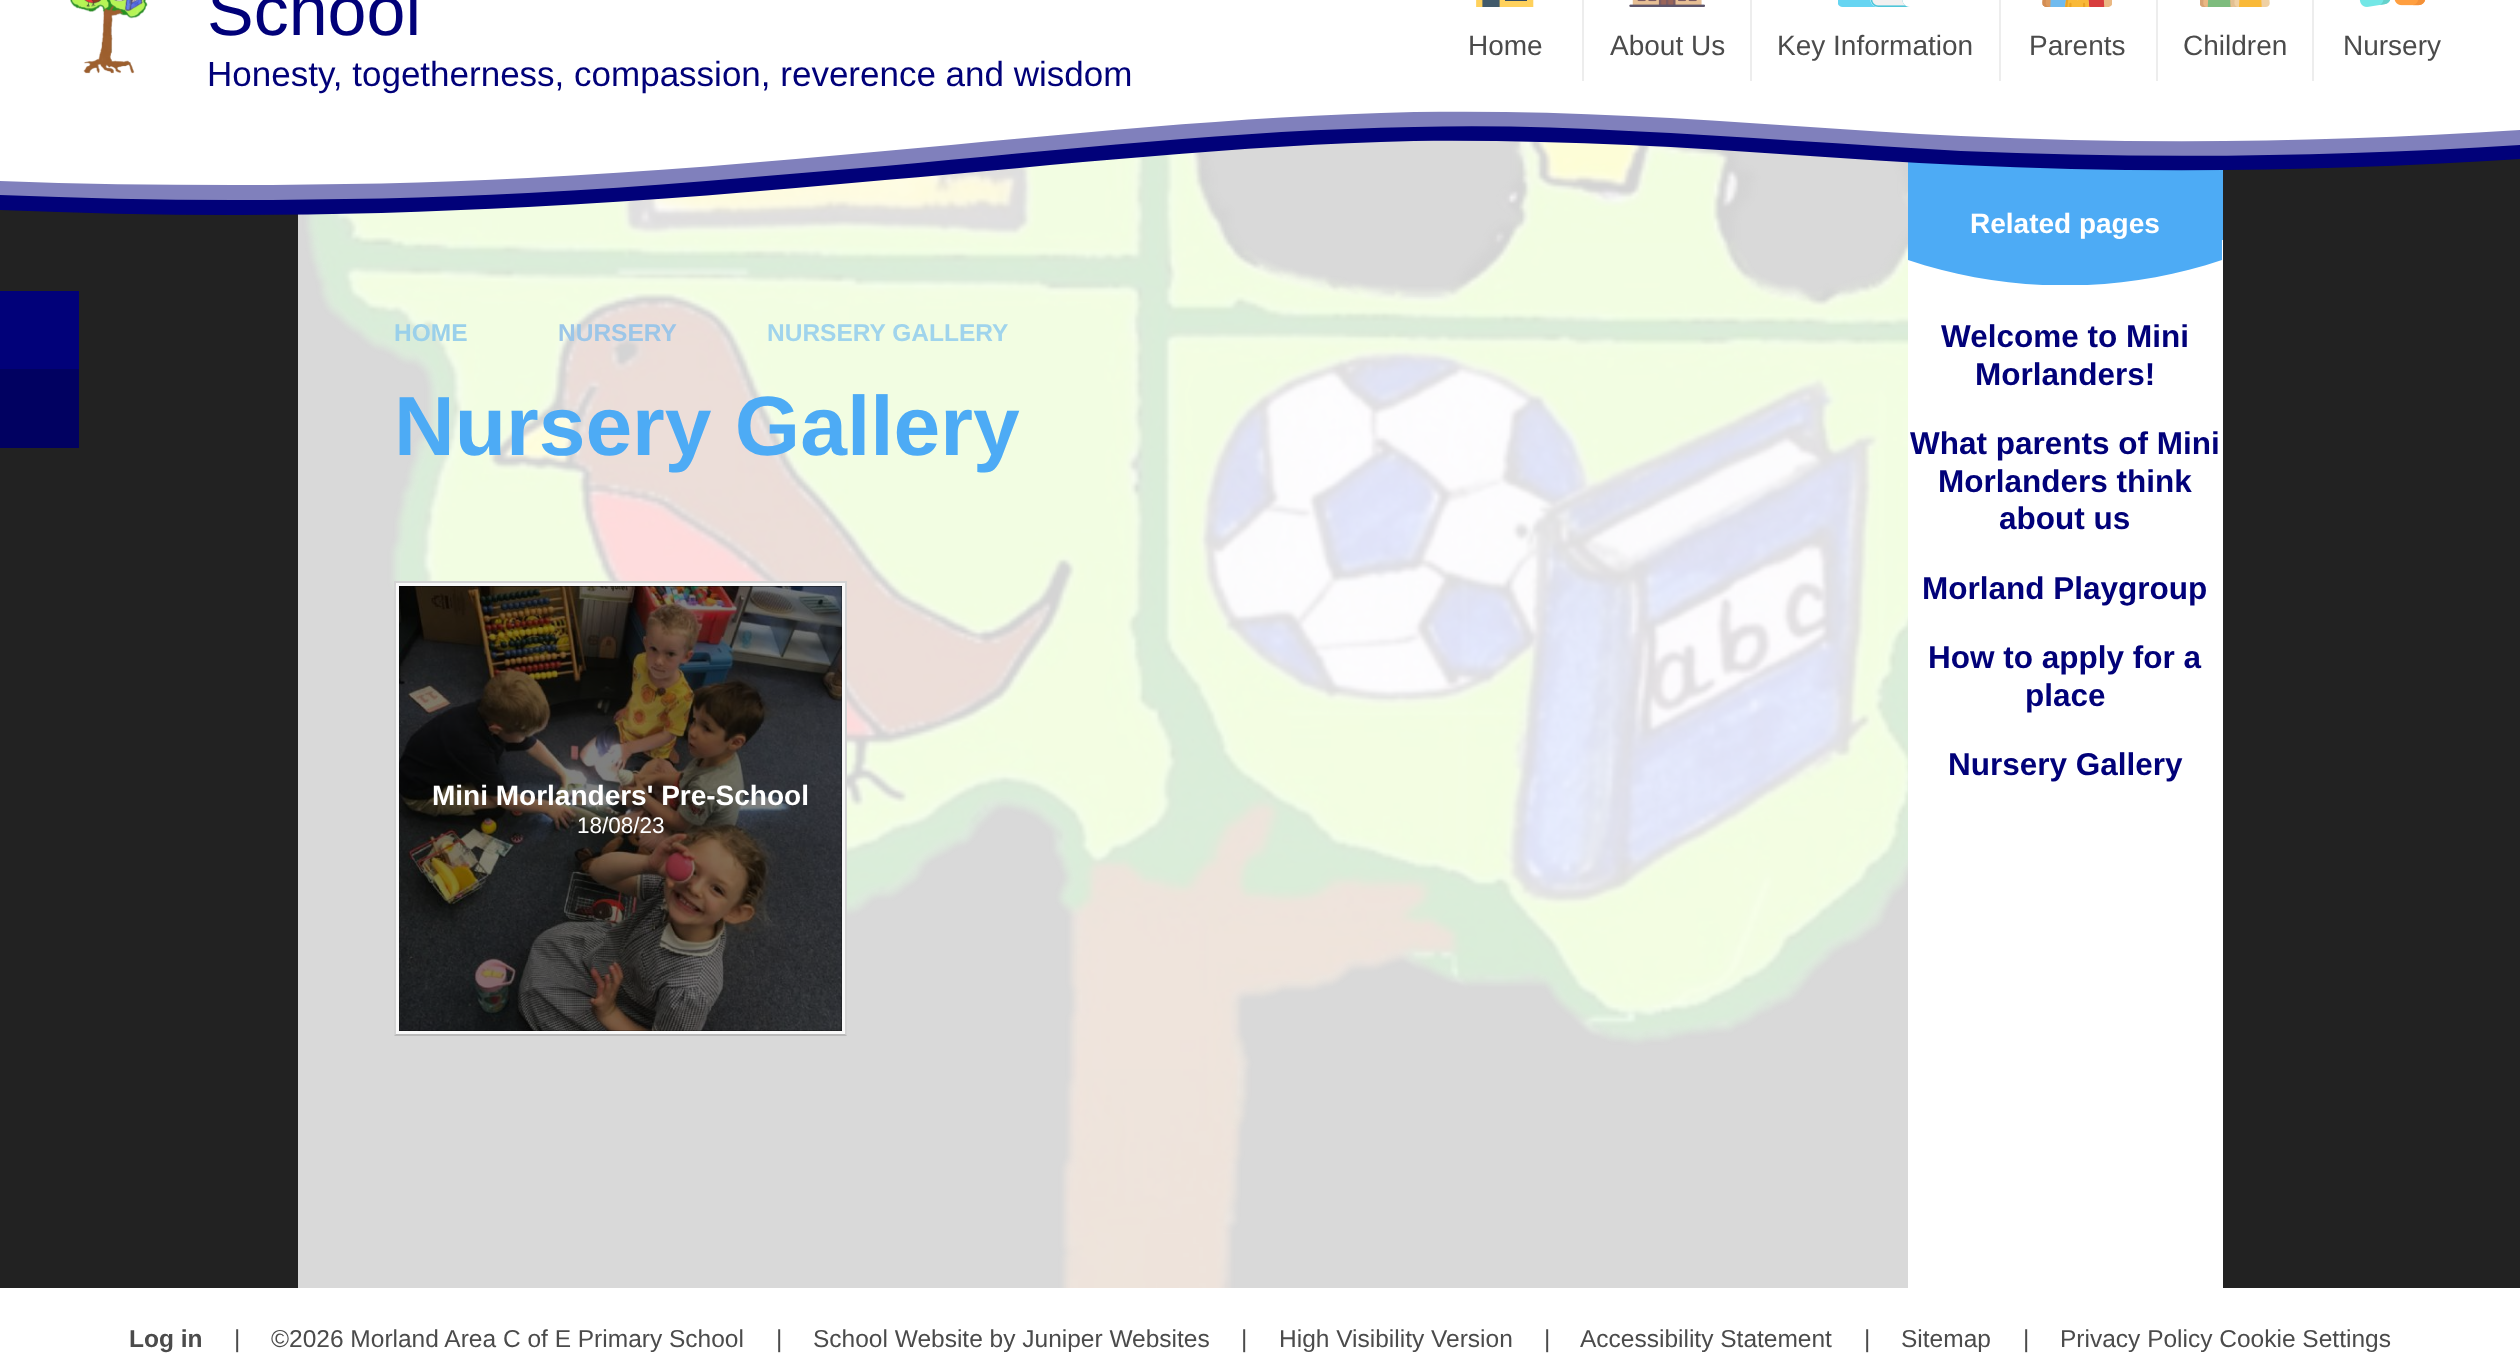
<!DOCTYPE html>
<meta charset="utf-8">
<style>body { margin: 0 } canvas { display: block }</style>
<canvas id="canvas" width="2520" height="1360"></canvas>
<img id="img1" src="img_02.png" hidden>
<img id="img2" src="img_03.png" hidden>
<img id="img3" src="img_04.png" hidden>
<img id="img4" src="img_05.png" hidden>
<img id="img5" src="img_06.png" hidden>
<img id="img6" src="img_07.png" hidden>
<img id="img7" src="img_08.png" hidden>
<img id="img8" src="img_09.png" hidden>
<img id="img9" src="img_01.png" hidden>
<script>
window.onload = function () {
	const canvas = document.getElementById("canvas");
	const ctx = canvas.getContext("2d");
	ctx.miterLimit = 4;
	ctx.fontKerning = "normal";
	function txt(s, x, y) {
		ctx.fillText(s, x, y);
	}
	function fill(x, y, w, h) {
		ctx.fillRect(x, y, w, h);
	}
	function img(id, x, y, w, h) {
		ctx.drawImage(document.getElementById(id), x, y, w, h);
	}

	ctx.fillStyle = "#FFFFFF";
	fill(0, 0, 2520, 1360);
	ctx.fillStyle = "#222222";
	fill(0, 159, 2520, 1129);
	ctx.fillStyle = "#010179";
	fill(0, 291, 79, 78);
	ctx.fillStyle = "#010161";
	fill(0, 369, 79, 79);
	img("img1", 1476, 0, 58, 7);
	img("img2", 1629, 0, 76, 7);
	img("img3", 1838, 0, 72, 7);
	img("img4", 2042, 0, 70, 7);
	img("img5", 2200, 0, 70, 7);
	img("img6", 2359, 0, 67, 7);
	ctx.fillStyle = "#D9D9D9";
	fill(298, 140, 1610, 1148);
	img("img7", 302, 141, 1606, 1147);
	ctx.fillStyle = "#F8F8F8";
	fill(394, 581, 453, 455);
	ctx.fillStyle = "#D3D3D3";
	ctx.beginPath();
	ctx.moveTo(394, 581);
	ctx.lineTo(847, 581);
	ctx.lineTo(845, 583);
	ctx.lineTo(396, 583);
	ctx.closePath();
	ctx.fill();
	ctx.fillStyle = "rgba(0, 0, 0, 0.15)";
	ctx.beginPath();
	ctx.moveTo(847, 581);
	ctx.lineTo(847, 1036);
	ctx.lineTo(845, 1034);
	ctx.lineTo(845, 583);
	ctx.closePath();
	ctx.fill();
	ctx.fillStyle = "rgba(0, 0, 0, 0.25)";
	ctx.beginPath();
	ctx.moveTo(847, 1036);
	ctx.lineTo(394, 1036);
	ctx.lineTo(396, 1034);
	ctx.lineTo(845, 1034);
	ctx.closePath();
	ctx.fill();
	ctx.fillStyle = "rgba(0, 0, 0, 0.15)";
	ctx.beginPath();
	ctx.moveTo(394, 1036);
	ctx.lineTo(394, 581);
	ctx.lineTo(396, 583);
	ctx.lineTo(396, 1034);
	ctx.closePath();
	ctx.fill();
	ctx.fillStyle = "#000000";
	fill(399, 586, 443, 445);
	img("img8", 399, 586, 443, 445);
	ctx.fillStyle = "#FFFFFF";
	fill(1908, 240, 315, 1048);
	ctx.fillStyle = "#4DABF5";
	fill(1908, 162, 315, 78);
	ctx.save();
	ctx.beginPath();
	ctx.rect(1908, 239, 315, 46);
	ctx.clip();
	ctx.beginPath();
	ctx.moveTo(2222, 239);
	ctx.lineTo(1908, 239);
	ctx.lineTo(1908, 260);
	ctx.bezierCurveTo(2009, 294, 2121, 294, 2222, 260);
	ctx.closePath();
	ctx.fill();
	ctx.restore();
	ctx.font = "70px Liberation Sans";
	ctx.fillStyle = "#010179";
	txt("School", 207, 35);
	ctx.font = "28px Liberation Sans";
	ctx.fillStyle = "#4B4B4B";
	txt("Home", 1468, 55);
	txt("About Us", 1610, 55);
	txt("Key Information", 1777, 55);
	txt("Parents", 2029, 55);
	txt("Children", 2183, 55);
	txt("Nursery", 2343, 55);
	ctx.font = "bold 24.5px Liberation Sans";
	ctx.fillStyle = "#9AD0EA";
	txt("HOME", 394, 341);
	ctx.fillStyle = "#9CC6E8";
	txt("NURSERY", 558, 341);
	ctx.fillStyle = "#A0D4EC";
	txt("NURSERY GALLERY", 767, 341);
	ctx.font = "bold 84px Liberation Sans";
	ctx.fillStyle = "#4DABF5";
	txt("Nursery Gallery", 394, 455);
	ctx.font = "bold 28px Liberation Sans";
	ctx.fillStyle = "#FFFFFF";
	txt("Mini Morlanders' Pre-School", 432, 805);
	ctx.font = "22.5px Liberation Sans";
	txt("18/08/23", 577, 833);
	ctx.font = "bold 28px Liberation Sans";
	txt("Related pages", 1970, 233);
	ctx.fillStyle = "#010179";
	ctx.beginPath();
	ctx.moveTo(235, 215);
	ctx.bezierCurveTo(157, 215, 78, 213, 0, 210);
	ctx.lineTo(0, 93);
	ctx.lineTo(2520, 93);
	ctx.lineTo(2520, 159);
	ctx.bezierCurveTo(2334, 171, 2147, 174, 1961, 165);
	ctx.bezierCurveTo(1850, 160, 1740, 150, 1629, 145);
	ctx.bezierCurveTo(1557, 142, 1486, 140, 1414, 141);
	ctx.bezierCurveTo(1237, 145, 1061, 165, 885, 180);
	ctx.bezierCurveTo(766, 191, 647, 201, 528, 207);
	ctx.bezierCurveTo(430, 212, 333, 215, 235, 215);
	ctx.closePath();
	ctx.fill();
	ctx.fillStyle = "rgba(255, 255, 255, 0.5)";
	ctx.beginPath();
	ctx.moveTo(235, 200);
	ctx.bezierCurveTo(157, 200, 78, 198, 0, 195);
	ctx.lineTo(0, 78);
	ctx.lineTo(2520, 78);
	ctx.lineTo(2520, 145);
	ctx.bezierCurveTo(2334, 157, 2147, 159, 1961, 151);
	ctx.bezierCurveTo(1850, 145, 1740, 136, 1629, 131);
	ctx.bezierCurveTo(1557, 127, 1486, 125, 1414, 127);
	ctx.bezierCurveTo(1237, 130, 1061, 150, 885, 166);
	ctx.bezierCurveTo(766, 176, 647, 187, 528, 193);
	ctx.bezierCurveTo(430, 198, 333, 200, 235, 200);
	ctx.closePath();
	ctx.fill();
	ctx.fillStyle = "#FFFFFF";
	ctx.beginPath();
	ctx.moveTo(235, 185);
	ctx.bezierCurveTo(157, 185, 78, 184, 0, 181);
	ctx.lineTo(0, 64);
	ctx.lineTo(2520, 64);
	ctx.lineTo(2520, 130);
	ctx.bezierCurveTo(2334, 142, 2147, 145, 1961, 136);
	ctx.bezierCurveTo(1850, 131, 1740, 121, 1629, 116);
	ctx.bezierCurveTo(1557, 112, 1486, 111, 1414, 112);
	ctx.bezierCurveTo(1237, 116, 1061, 135, 885, 151);
	ctx.bezierCurveTo(766, 162, 647, 172, 528, 178);
	ctx.bezierCurveTo(430, 183, 333, 185, 235, 185);
	ctx.closePath();
	ctx.fill();
	img("img9", 70, 0, 78, 74);
	ctx.font = "35px Liberation Sans";
	ctx.fillStyle = "#010179";
	txt("Honesty, togetherness, compassion, reverence and wisdom", 207, 86);
	ctx.fillStyle = "#EDEDED";
	fill(2312, 0, 2, 81);
	fill(2156, 0, 2, 81);
	fill(1999, 0, 2, 81);
	fill(1750, 0, 2, 81);
	fill(1582, 0, 2, 81);
	ctx.font = "bold 31.5px Liberation Sans";
	ctx.fillStyle = "#010179";
	txt("Welcome to Mini", 1941, 347);
	txt("Morlanders!", 1975, 385);
	txt("What parents of Mini", 1910, 454);
	txt("Morlanders think", 1938, 492);
	txt("about us", 1999, 529);
	txt("Morland Playgroup", 1922, 599);
	txt("How to apply for a", 1928, 668);
	txt("place", 2025, 706);
	txt("Nursery Gallery", 1948, 775);
	ctx.font = "bold 24.5px Liberation Sans";
	ctx.fillStyle = "#4B4B4B";
	txt("Log in", 129, 1347);
	ctx.font = "24.5px Liberation Sans";
	txt("|", 234, 1347);
	txt("©2026 Morland Area C of E Primary School", 271, 1347);
	txt("|", 776, 1347);
	txt("School Website by Juniper Websites", 813, 1347);
	txt("|", 1241, 1347);
	txt("High Visibility Version", 1279, 1347);
	txt("|", 1544, 1347);
	txt("Accessibility Statement", 1580, 1347);
	txt("|", 1864, 1347);
	txt("Sitemap", 1901, 1347);
	txt("|", 2023, 1347);
	txt("Privacy Policy Cookie Settings", 2060, 1347);
};
</script>
